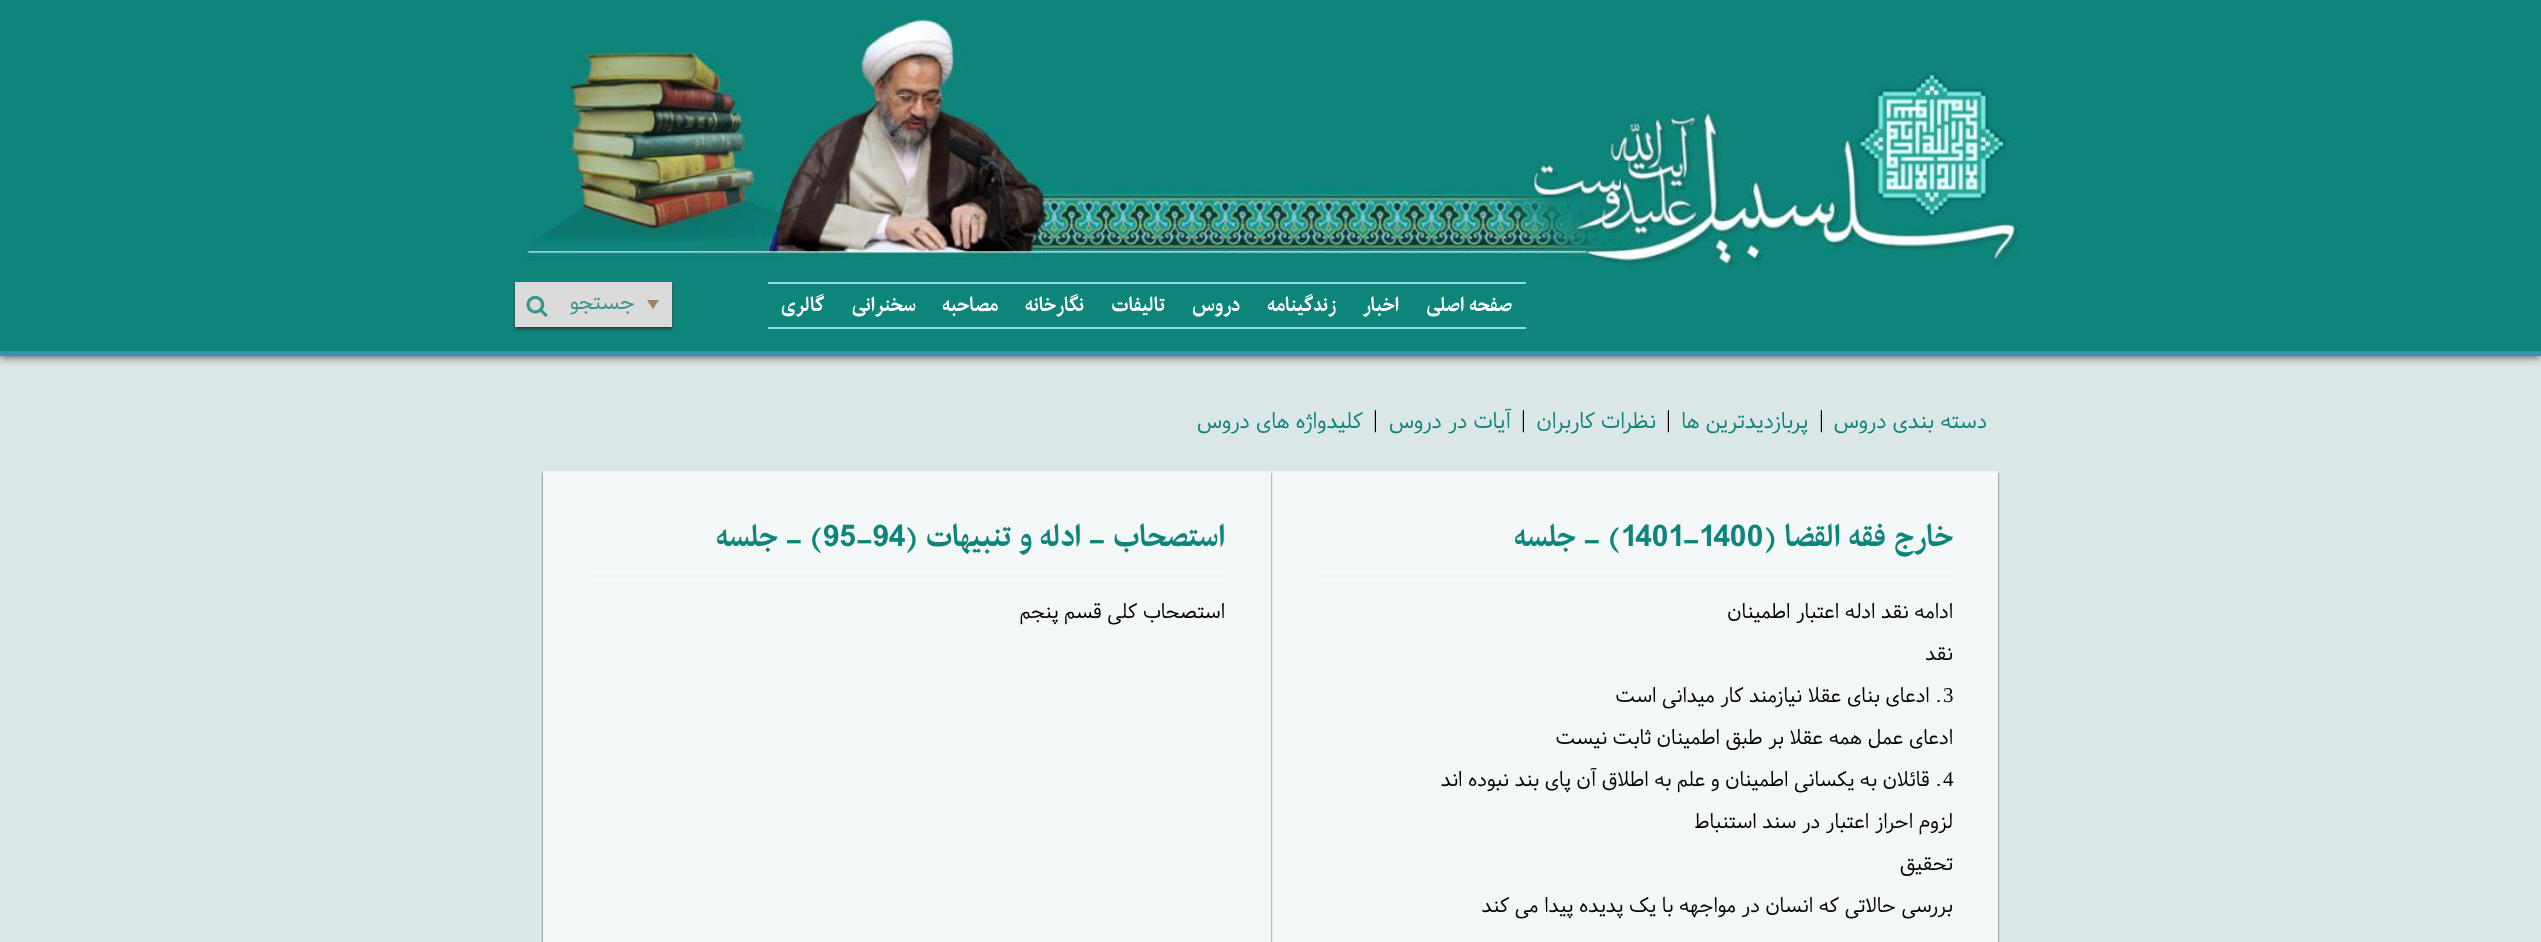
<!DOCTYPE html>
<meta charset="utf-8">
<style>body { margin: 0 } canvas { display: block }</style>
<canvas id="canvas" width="2541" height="942"></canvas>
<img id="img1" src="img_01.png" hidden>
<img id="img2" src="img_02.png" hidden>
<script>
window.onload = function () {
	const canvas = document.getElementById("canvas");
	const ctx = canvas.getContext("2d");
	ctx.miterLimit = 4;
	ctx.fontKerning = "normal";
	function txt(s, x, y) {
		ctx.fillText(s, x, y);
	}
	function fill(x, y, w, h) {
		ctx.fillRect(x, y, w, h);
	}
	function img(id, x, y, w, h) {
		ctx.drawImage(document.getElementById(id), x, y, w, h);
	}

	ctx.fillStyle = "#DBE7E7";
	fill(0, 0, 2541, 942);
	ctx.fillStyle = "rgba(0, 0, 0, 0.66)";
	ctx.filter = "blur(4.5px)";
	ctx.beginPath();
	ctx.rect(0, 2, 2541, 355);
	ctx.fill();
	ctx.filter = "none";
	ctx.fillStyle = "#0E857B";
	fill(0, 0, 2541, 351);
	ctx.fillStyle = "#3593AE";
	fill(0, 351, 2541, 5);
	img("img1", 520, 15, 1501, 255);
	ctx.fillStyle = "#93D8EC";
	fill(768, 282, 758, 2);
	fill(768, 327, 758, 2);
	ctx.fillStyle = "#363432";
	ctx.filter = "blur(1.5px)";
	ctx.beginPath();
	ctx.rect(515, 284, 157, 45);
	ctx.fill();
	ctx.filter = "none";
	ctx.fillStyle = "#DBDBDB";
	fill(515, 282, 157, 45);
	ctx.fillStyle = "#A48069";
	ctx.beginPath();
	ctx.moveTo(647, 300);
	ctx.lineTo(659, 300);
	ctx.lineTo(653, 309);
	ctx.closePath();
	ctx.fill();
	img("img2", 526, 295, 22, 22);
	ctx.fillStyle = "rgba(0, 0, 0, 0.75)";
	ctx.filter = "blur(1px)";
	ctx.beginPath();
	ctx.rect(1271, 473, 727, 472);
	ctx.fill();
	ctx.filter = "none";
	ctx.fillStyle = "#F4F7F7";
	fill(1271, 471, 727, 471);
	ctx.fillStyle = "#F6F2EA";
	fill(1316, 575, 637, 2);
	ctx.fillStyle = "rgba(0, 0, 0, 0.75)";
	ctx.filter = "blur(1px)";
	ctx.beginPath();
	ctx.rect(543, 473, 728, 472);
	ctx.fill();
	ctx.filter = "none";
	ctx.fillStyle = "#F4F7F7";
	fill(543, 471, 728, 471);
	ctx.fillStyle = "#F6F2EA";
	fill(588, 575, 638, 2);
	ctx.direction = "rtl";
	ctx.font = "bold 19.5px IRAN";
	ctx.fillStyle = "#FFFFFF";
	txt("صفحه اصلی", 1512, 311);
	txt("اخبار", 1399, 311);
	txt("زندگینامه", 1336, 311);
	txt("دروس", 1240, 311);
	txt("تالیفات", 1165, 311);
	txt("نگارخانه", 1084, 311);
	txt("مصاحبه", 998, 311);
	txt("سخنرانی", 916, 311);
	txt("گالری", 824, 311);
	ctx.font = "22.5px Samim";
	ctx.fillStyle = "#37968E";
	txt("جستجو", 635, 309);
	ctx.fillStyle = "#0E857B";
	txt("دسته بندی دروس", 1987, 428);
	ctx.direction = "ltr";
	ctx.font = "24px Liberation Serif";
	ctx.fillStyle = "#000000";
	txt("|", 1819, 427);
	ctx.direction = "rtl";
	ctx.font = "22.5px Samim";
	ctx.fillStyle = "#0E857B";
	txt("پربازدیدترین ها", 1808, 428);
	ctx.direction = "ltr";
	ctx.font = "24px Liberation Serif";
	ctx.fillStyle = "#000000";
	txt("|", 1666, 427);
	ctx.direction = "rtl";
	ctx.font = "22.5px Samim";
	ctx.fillStyle = "#0E857B";
	txt("نظرات کاربران", 1656, 428);
	ctx.direction = "ltr";
	ctx.font = "24px Liberation Serif";
	ctx.fillStyle = "#000000";
	txt("|", 1521, 427);
	ctx.direction = "rtl";
	ctx.font = "22.5px Samim";
	ctx.fillStyle = "#0E857B";
	txt("آیات در دروس", 1511, 428);
	ctx.direction = "ltr";
	ctx.font = "24px Liberation Serif";
	ctx.fillStyle = "#000000";
	txt("|", 1373, 427);
	ctx.direction = "rtl";
	ctx.font = "22.5px Samim";
	ctx.fillStyle = "#0E857B";
	txt("کلیدواژه های دروس", 1363, 428);
	ctx.font = "bold 30px IRAN";
	txt("خارج فقه القضا (", 1953, 546);
	ctx.direction = "ltr";
	txt("1401-1400", 1621, 546);
	ctx.direction = "rtl";
	txt(") - جلسه", 1621, 546);
	ctx.font = "21px Samim";
	ctx.fillStyle = "#000000";
	txt("ادامه نقد ادله اعتبار اطمینان", 1953, 618);
	txt("نقد", 1953, 660);
	ctx.direction = "ltr";
	ctx.font = "21px Liberation Serif";
	txt("3", 1943, 702);
	ctx.direction = "rtl";
	ctx.font = "21px Samim";
	txt(". ادعای بنای عقلا نیازمند کار میدانی است", 1942, 702);
	txt("ادعای عمل همه عقلا بر طبق اطمینان ثابت نیست", 1953, 744);
	ctx.direction = "ltr";
	ctx.font = "21px Liberation Serif";
	txt("4", 1943, 786);
	ctx.direction = "rtl";
	ctx.font = "21px Samim";
	txt(". قائلان به یکسانی اطمینان و علم به اطلاق آن پای بند نبوده اند", 1942, 786);
	txt("لزوم احراز اعتبار در سند استنباط", 1953, 828);
	txt("تحقیق", 1953, 870);
	txt("بررسی حالاتی که انسان در مواجهه با یک پدیده پیدا می کند", 1953, 912);
	ctx.font = "bold 30px IRAN";
	ctx.fillStyle = "#0E857B";
	txt("استصحاب - ادله و تنبیهات (", 1225, 546);
	ctx.direction = "ltr";
	txt("95-94", 823, 546);
	ctx.direction = "rtl";
	txt(") - جلسه", 823, 546);
	ctx.font = "21px Samim";
	ctx.fillStyle = "#000000";
	txt("استصحاب کلی قسم پنجم", 1225, 618);
};
</script>
